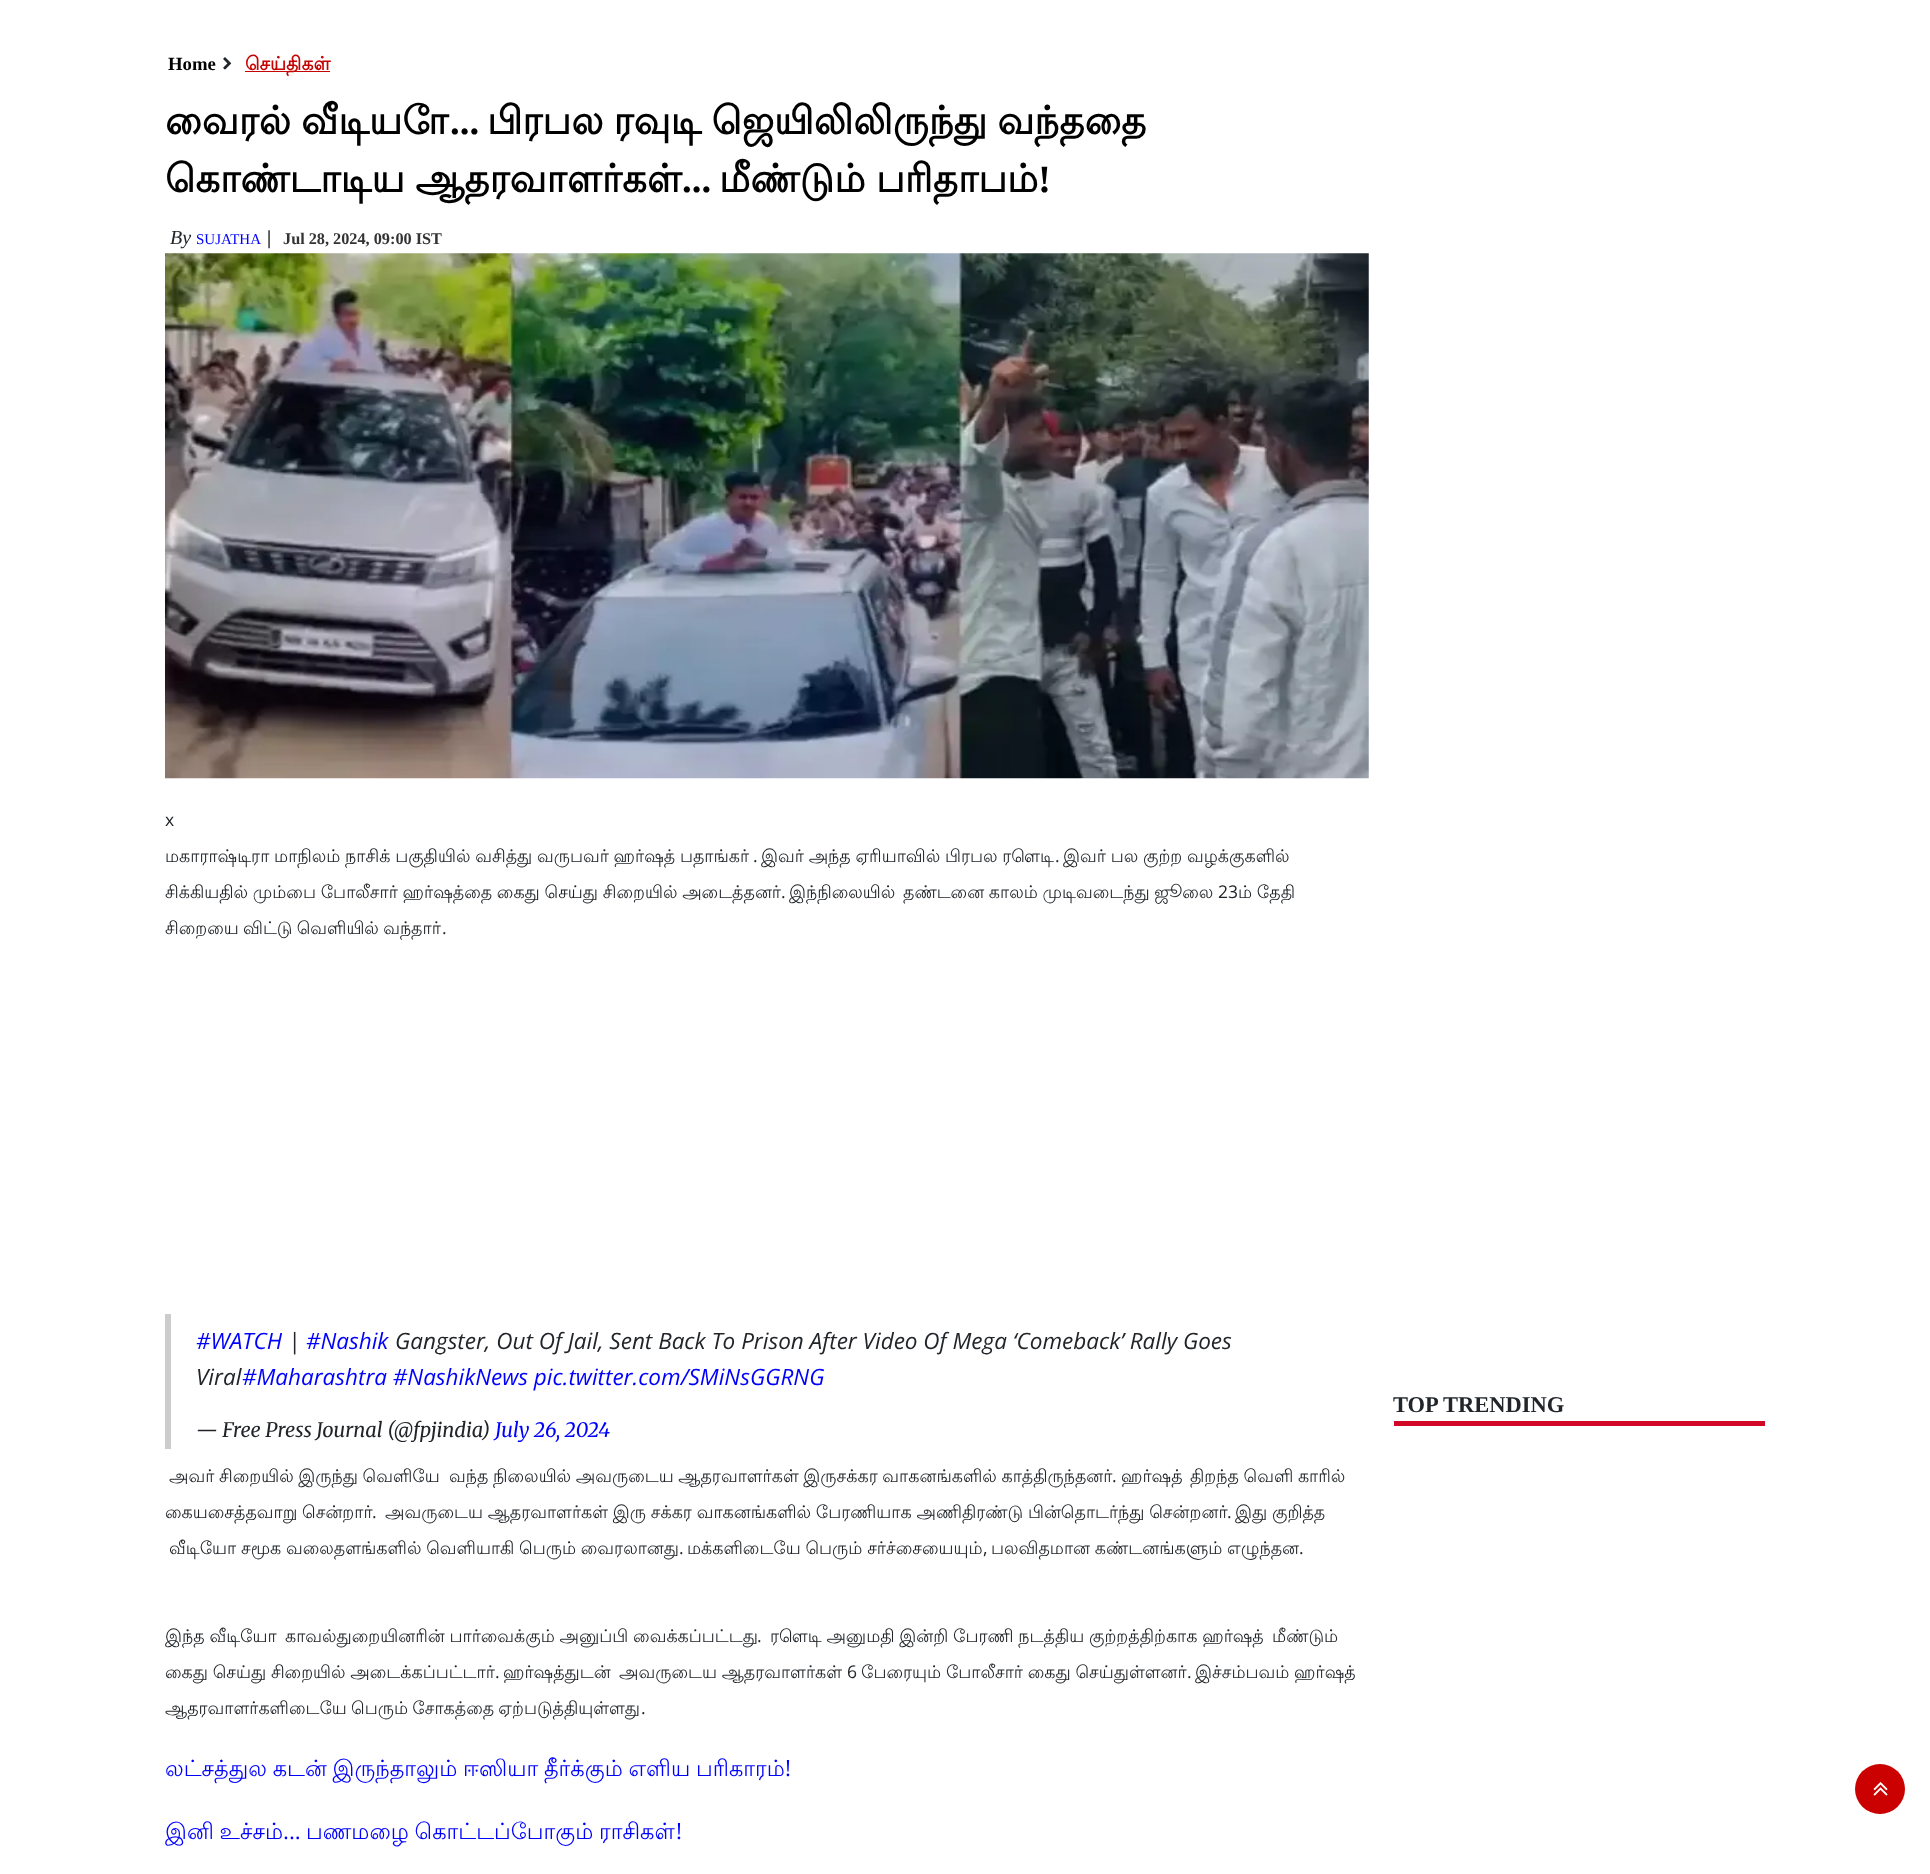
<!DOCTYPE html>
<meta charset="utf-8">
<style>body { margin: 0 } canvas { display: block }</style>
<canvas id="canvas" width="1930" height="1874"></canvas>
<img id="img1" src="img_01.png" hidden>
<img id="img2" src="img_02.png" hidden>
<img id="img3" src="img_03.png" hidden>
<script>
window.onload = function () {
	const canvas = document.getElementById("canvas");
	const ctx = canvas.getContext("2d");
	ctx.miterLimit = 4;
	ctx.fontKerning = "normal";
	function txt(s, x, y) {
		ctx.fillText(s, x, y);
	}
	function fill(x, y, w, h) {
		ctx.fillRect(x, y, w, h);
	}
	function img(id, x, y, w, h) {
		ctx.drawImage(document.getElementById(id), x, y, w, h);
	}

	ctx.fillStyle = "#FFFFFF";
	fill(0, 0, 1930, 1874);
	img("img1", 223, 57, 9, 13);
	ctx.fillStyle = "#C50504";
	fill(245, 71, 85, 1);
	img("img2", 165, 253, 1204, 526);
	ctx.fillStyle = "#CCCCCC";
	fill(165, 1314, 6, 135);
	ctx.fillStyle = "#D10728";
	fill(1394, 1421, 371, 5);
	ctx.fillStyle = "#CB0101";
	ctx.beginPath();
	ctx.arc(1880, 1789, 25, 0, Math.PI * 2);
	ctx.fill();
	img("img3", 1873, 1782, 15, 14);
	ctx.font = "bold 18.75px Liberation Serif";
	ctx.fillStyle = "#000000";
	txt("Home", 168, 70);
	ctx.font = "bold 18.75px Lohit Tamil";
	ctx.fillStyle = "#C50504";
	txt("செய்திகள்", 245, 70);
	ctx.wordSpacing = "-1.5px";
	ctx.font = "bold 38.75px Lohit Tamil";
	ctx.fillStyle = "#000000";
	txt("வைரல் வீடியோ", 165, 134);
	ctx.wordSpacing = "0px";
	ctx.font = "bold 38.75px Liberation Serif";
	txt("...", 450, 134);
	ctx.wordSpacing = "-1.5px";
	ctx.font = "bold 38.75px Lohit Tamil";
	txt("பிரபல ரவுடி ஜெயிலிலிருந்து வந்ததை", 487, 134);
	ctx.wordSpacing = "-1px";
	txt("கொண்டாடிய ஆதரவாளர்கள்", 165, 192);
	ctx.wordSpacing = "0px";
	ctx.font = "bold 38.75px Liberation Serif";
	txt("...", 682, 192);
	ctx.wordSpacing = "-1px";
	ctx.font = "bold 38.75px Lohit Tamil";
	txt("மீண்டும் பரிதாபம்", 719, 192);
	ctx.wordSpacing = "0px";
	ctx.font = "bold 38.75px Liberation Serif";
	txt("!", 1038, 192);
	ctx.font = "italic 20px Liberation Serif";
	ctx.fillStyle = "#212529";
	txt("By", 170, 244);
	ctx.font = "15px Liberation Serif";
	ctx.fillStyle = "#0000FF";
	txt("SUJATHA", 196, 244);
	ctx.font = "italic bold 20px Liberation Serif";
	ctx.fillStyle = "#212529";
	txt("|", 267, 244);
	ctx.font = "bold 16.25px Liberation Serif";
	ctx.fillStyle = "#333333";
	txt("Jul 28, 2024, 09:00 IST", 283, 244);
	ctx.font = "17.5px Open Sans";
	ctx.fillStyle = "#212529";
	txt("x", 165, 826);
	ctx.wordSpacing = "-0.5px";
	ctx.font = "17.5px Lohit Tamil";
	txt("மகாராஷ்டிரா மாநிலம் நாசிக் பகுதியில் வசித்து வருபவர் ஹர்ஷத் பதாங்கர்", 165, 862);
	ctx.wordSpacing = "0px";
	ctx.font = "17.5px Open Sans";
	txt(".", 753, 862);
	ctx.wordSpacing = "-0.5px";
	ctx.font = "17.5px Lohit Tamil";
	txt("இவர் அந்த ஏரியாவில் பிரபல ரௌடி", 761, 862);
	ctx.wordSpacing = "0px";
	ctx.font = "17.5px Open Sans";
	txt(".", 1055, 862);
	ctx.wordSpacing = "-0.5px";
	ctx.font = "17.5px Lohit Tamil";
	txt("இவர் பல குற்ற வழக்குகளில்", 1063, 862);
	txt("சிக்கியதில் மும்பை போலீசார் ஹர்ஷத்தை கைது செய்து சிறையில் அடைத்தனர்", 165, 898);
	ctx.wordSpacing = "0px";
	ctx.font = "17.5px Open Sans";
	txt(".", 781, 898);
	ctx.font = "17.5px Lohit Tamil";
	txt("இந்நிலையில்", 789, 898);
	ctx.wordSpacing = "-0.5px";
	txt("தண்டனை காலம் முடிவடைந்து ஜூலை", 903, 898);
	ctx.wordSpacing = "0px";
	ctx.font = "17.5px Open Sans";
	txt("23", 1218, 898);
	ctx.wordSpacing = "-0.5px";
	ctx.font = "17.5px Lohit Tamil";
	txt("ம் தேதி", 1238, 898);
	ctx.wordSpacing = "-1px";
	txt("சிறையை விட்டு வெளியில் வந்தார்", 165, 934);
	ctx.wordSpacing = "0px";
	ctx.font = "17.5px Open Sans";
	txt(".", 442, 934);
	ctx.font = "italic 22.5px Open Sans";
	ctx.fillStyle = "#0000FF";
	txt("#WATCH", 196, 1349);
	ctx.fillStyle = "#212529";
	txt("|", 288, 1349);
	ctx.fillStyle = "#0000FF";
	txt("#Nashik", 306, 1349);
	ctx.fillStyle = "#212529";
	txt("Gangster, Out Of Jail, Sent Back To Prison After Video Of Mega ‘Comeback’ Rally Goes", 395, 1349);
	txt("Viral", 196, 1385);
	ctx.fillStyle = "#0000FF";
	txt("#Maharashtra #NashikNews pic.twitter.com/SMiNsGGRNG", 242, 1385);
	ctx.font = "italic 20px Merriweather";
	ctx.fillStyle = "#212529";
	txt("— Free Press Journal (@fpjindia)", 196, 1437);
	ctx.fillStyle = "#0000FF";
	txt("July 26, 2024", 495, 1437);
	ctx.wordSpacing = "-0.6px";
	ctx.font = "17.5px Lohit Tamil";
	ctx.fillStyle = "#212529";
	txt("அவர் சிறையில் இருந்து வெளியே ‌ வந்த நிலையில் அவருடைய ஆதரவாளர்கள் இருசக்கர வாகனங்களில் காத்திருந்தனர்", 169, 1482);
	ctx.wordSpacing = "0px";
	ctx.font = "17.5px Open Sans";
	txt(".", 1112, 1482);
	ctx.font = "17.5px Lohit Tamil";
	txt("ஹர்ஷத்", 1121, 1482);
	ctx.wordSpacing = "-0.6px";
	txt("திறந்த வெளி காரில்", 1190, 1482);
	ctx.wordSpacing = "-0.5px";
	txt("கையசைத்தவாறு சென்றார்", 165, 1518);
	ctx.wordSpacing = "0px";
	ctx.font = "17.5px Open Sans";
	txt(".", 372, 1518);
	ctx.wordSpacing = "-0.5px";
	ctx.font = "17.5px Lohit Tamil";
	txt("அவருடைய ஆதரவாளர்கள் இரு சக்கர வாகனங்களில் பேரணியாக அணிதிரண்டு பின்தொடர்ந்து சென்றனர்", 385, 1518);
	ctx.wordSpacing = "0px";
	ctx.font = "17.5px Open Sans";
	txt(".", 1227, 1518);
	ctx.wordSpacing = "-0.5px";
	ctx.font = "17.5px Lohit Tamil";
	txt("இது குறித்த", 1235, 1518);
	txt("வீடியோ சமூக வலைதளங்களில் வெளியாகி பெரும் வைரலானது", 169, 1554);
	ctx.wordSpacing = "0px";
	ctx.font = "17.5px Open Sans";
	txt(".", 679, 1554);
	ctx.wordSpacing = "-0.5px";
	ctx.font = "17.5px Lohit Tamil";
	txt("மக்களிடையே பெரும் சர்ச்சையையும்", 687, 1554);
	ctx.wordSpacing = "0px";
	ctx.font = "17.5px Open Sans";
	txt(",", 983, 1554);
	ctx.wordSpacing = "-0.5px";
	ctx.font = "17.5px Lohit Tamil";
	txt("பலவிதமான கண்டனங்களும் எழுந்தன", 991, 1554);
	ctx.wordSpacing = "0px";
	ctx.font = "17.5px Open Sans";
	txt(".", 1299, 1554);
	ctx.wordSpacing = "-0.5px";
	ctx.font = "17.5px Lohit Tamil";
	txt("இந்த வீடியோ", 165, 1642);
	txt("காவல்துறையினரின் பார்வைக்கும் அனுப்பி வைக்கப்பட்டது", 285, 1642);
	ctx.wordSpacing = "0px";
	ctx.font = "17.5px Open Sans";
	txt(".", 757, 1642);
	ctx.wordSpacing = "-0.5px";
	ctx.font = "17.5px Lohit Tamil";
	txt("ரௌடி அனுமதி இன்றி பேரணி நடத்திய குற்றத்திற்காக ஹர்ஷத்", 770, 1642);
	txt("மீண்டும் ‌", 1272, 1642);
	txt("கைது செய்து சிறையில் அடைக்கப்பட்டார்", 165, 1678);
	ctx.wordSpacing = "0px";
	ctx.font = "17.5px Open Sans";
	txt(".", 495, 1678);
	ctx.font = "17.5px Lohit Tamil";
	txt("ஹர்ஷத்துடன்", 503, 1678);
	ctx.wordSpacing = "-0.5px";
	txt("அவருடைய ஆதரவாளர்கள் ‌", 619, 1678);
	ctx.wordSpacing = "0px";
	ctx.font = "17.5px Open Sans";
	txt("6", 847, 1678);
	ctx.wordSpacing = "-0.5px";
	ctx.font = "17.5px Lohit Tamil";
	txt("பேரையும் போலீசார் கைது செய்துள்ளனர்", 861, 1678);
	ctx.wordSpacing = "0px";
	ctx.font = "17.5px Open Sans";
	txt(".", 1187, 1678);
	ctx.wordSpacing = "-0.5px";
	ctx.font = "17.5px Lohit Tamil";
	txt("இச்சம்பவம் ஹர்ஷத்", 1195, 1678);
	ctx.wordSpacing = "-1px";
	txt("ஆதரவாளர்களிடையே பெரும் சோகத்தை ஏற்படுத்தியுள்ளது", 165, 1714);
	ctx.wordSpacing = "0px";
	ctx.font = "17.5px Open Sans";
	txt(".", 641, 1714);
	ctx.wordSpacing = "-1px";
	ctx.font = "22.5px Lohit Tamil";
	ctx.fillStyle = "#0000FF";
	txt("லட்சத்துல கடன் இருந்தாலும் ஈஸியா தீர்க்கும் எளிய பரிகாரம்", 165, 1776);
	ctx.wordSpacing = "0px";
	ctx.font = "22.5px Open Sans";
	txt("!", 785, 1776);
	ctx.wordSpacing = "-1px";
	ctx.font = "22.5px Lohit Tamil";
	txt("இனி உச்சம்", 165, 1839);
	ctx.wordSpacing = "0px";
	ctx.font = "22.5px Open Sans";
	txt("...", 283, 1839);
	ctx.wordSpacing = "-1px";
	ctx.font = "22.5px Lohit Tamil";
	txt("பணமழை கொட்டப்போகும் ராசிகள்", 306, 1839);
	ctx.wordSpacing = "0px";
	ctx.font = "22.5px Open Sans";
	txt("!", 676, 1839);
	ctx.font = "bold 22.5px Liberation Serif";
	ctx.fillStyle = "#212529";
	txt("TOP", 1393, 1412);
	txt("TRENDING", 1443, 1412);
};
</script>
